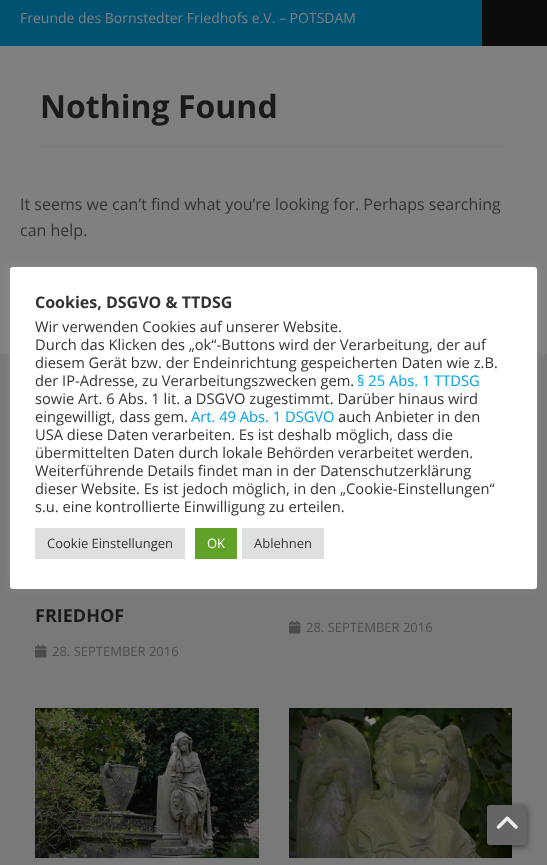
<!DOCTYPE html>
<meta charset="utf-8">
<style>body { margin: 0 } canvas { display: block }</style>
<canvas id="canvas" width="547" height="865"></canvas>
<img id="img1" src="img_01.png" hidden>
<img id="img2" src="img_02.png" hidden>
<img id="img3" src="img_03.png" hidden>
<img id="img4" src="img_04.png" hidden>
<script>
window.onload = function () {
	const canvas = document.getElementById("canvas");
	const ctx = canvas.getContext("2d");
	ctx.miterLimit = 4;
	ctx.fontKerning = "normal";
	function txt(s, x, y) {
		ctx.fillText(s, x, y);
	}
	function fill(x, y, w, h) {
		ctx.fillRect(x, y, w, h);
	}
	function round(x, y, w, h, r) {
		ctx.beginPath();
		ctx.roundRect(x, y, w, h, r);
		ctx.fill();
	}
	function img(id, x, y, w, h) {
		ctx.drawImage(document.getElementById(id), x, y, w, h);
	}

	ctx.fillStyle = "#808080";
	fill(0, 0, 547, 865);
	ctx.fillStyle = "#0C0C0C";
	fill(482, 0, 65, 46);
	ctx.fillStyle = "#005273";
	fill(0, 0, 482, 46);
	ctx.fillStyle = "#797979";
	fill(40, 146, 467, 1);
	fill(0, 354, 547, 511);
	img("img1", 35, 644, 12, 14);
	img("img1", 289, 620, 12, 14);
	img("img2", 35, 708, 224, 150);
	img("img3", 289, 708, 223, 150);
	ctx.fillStyle = "rgba(172, 171, 171, 0.3)";
	ctx.filter = "blur(5px)";
	ctx.beginPath();
	ctx.roundRect(10, 266, 527, 322, 3);
	ctx.fill();
	ctx.filter = "none";
	ctx.fillStyle = "#FFFFFF";
	round(10, 267, 527, 322, 3);
	ctx.fillStyle = "#DEDFE0";
	fill(35, 528, 150, 31);
	ctx.fillStyle = "#61A229";
	fill(195, 528, 42, 31);
	ctx.fillStyle = "#DEDFE0";
	fill(242, 528, 82, 31);
	ctx.save();
	ctx.beginPath();
	ctx.moveTo(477, 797);
	ctx.lineTo(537, 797);
	ctx.lineTo(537, 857);
	ctx.lineTo(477, 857);
	ctx.closePath();
	ctx.moveTo(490, 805);
	ctx.lineTo(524, 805);
	ctx.bezierCurveTo(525.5, 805, 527, 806.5, 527, 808);
	ctx.lineTo(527, 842);
	ctx.bezierCurveTo(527, 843.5, 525.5, 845, 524, 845);
	ctx.lineTo(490, 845);
	ctx.bezierCurveTo(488.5, 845, 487, 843.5, 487, 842);
	ctx.lineTo(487, 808);
	ctx.bezierCurveTo(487, 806.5, 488.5, 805, 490, 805);
	ctx.closePath();
	ctx.clip("evenodd");
	ctx.fillStyle = "rgba(0, 0, 0, 0.49)";
	ctx.filter = "blur(3px)";
	ctx.beginPath();
	ctx.roundRect(487, 807, 40, 40, 3);
	ctx.fill();
	ctx.filter = "none";
	ctx.restore();
	ctx.fillStyle = "rgba(102, 102, 102, 0.99)";
	round(487, 805, 40, 40, 3);
	img("img4", 496, 816, 22, 13);
	ctx.font = "14px Open Sans";
	ctx.fillStyle = "#808080";
	txt("Freunde des Bornstedter Friedhofs e.V. – POTSDAM", 20, 23);
	ctx.font = "bold 32px Open Sans";
	ctx.fillStyle = "#1A1A1A";
	txt("Nothing Found", 40, 118);
	ctx.font = "16px Open Sans";
	ctx.fillStyle = "#333333";
	txt("It seems we can’t find what you’re looking for. Perhaps searching", 20, 210);
	txt("can help.", 20, 236);
	ctx.font = "bold 18px Open Sans";
	ctx.fillStyle = "#1A1A1A";
	txt("FRIEDHOF", 35, 622);
	ctx.font = "13px Open Sans";
	ctx.fillStyle = "#4D4D4D";
	txt("28. SEPTEMBER 2016", 52, 656);
	txt("28. SEPTEMBER 2016", 306, 632);
	ctx.font = "bold 16px Open Sans";
	ctx.fillStyle = "#333333";
	txt("Cookies, DSGVO & TTDSG", 35, 308);
	ctx.font = "14.7px Open Sans";
	txt("Wir verwenden Cookies auf unserer Website.", 35, 332);
	txt("Durch das Klicken des „ok“-Buttons wird der Verarbeitung, der auf", 35, 350);
	txt("diesem Gerät bzw. der Endeinrichtung gespeicherten Daten wie z.B.", 35, 368);
	txt("der IP-Adresse, zu Verarbeitungszwecken gem.", 35, 386);
	ctx.fillStyle = "#00A3E6";
	txt("§ 25 Abs. 1 TTDSG", 357, 386);
	ctx.fillStyle = "#333333";
	txt("sowie Art. 6 Abs. 1 lit. a DSGVO zugestimmt. Darüber hinaus wird", 35, 404);
	txt("eingewilligt, dass gem.", 35, 422);
	ctx.fillStyle = "#00A3E6";
	txt("Art. 49 Abs. 1 DSGVO", 191, 422);
	ctx.fillStyle = "#333333";
	txt("auch Anbieter in den", 338, 422);
	txt("USA diese Daten verarbeiten. Es ist deshalb möglich, dass die", 35, 440);
	txt("übermittelten Daten durch lokale Behörden verarbeitet werden.", 35, 458);
	txt("Weiterführende Details findet man in der Datenschutzerklärung", 35, 476);
	txt("dieser Website. Es ist jedoch möglich, in den „Cookie-Einstellungen“", 35, 494);
	txt("s.u. eine kontrollierte Einwilligung zu erteilen.", 35, 512);
	ctx.font = "13px Open Sans";
	txt("Cookie Einstellungen", 47, 548);
	ctx.fillStyle = "#FFFFFF";
	txt("OK", 207, 548);
	ctx.fillStyle = "#333333";
	txt("Ablehnen", 254, 548);
};
</script>
